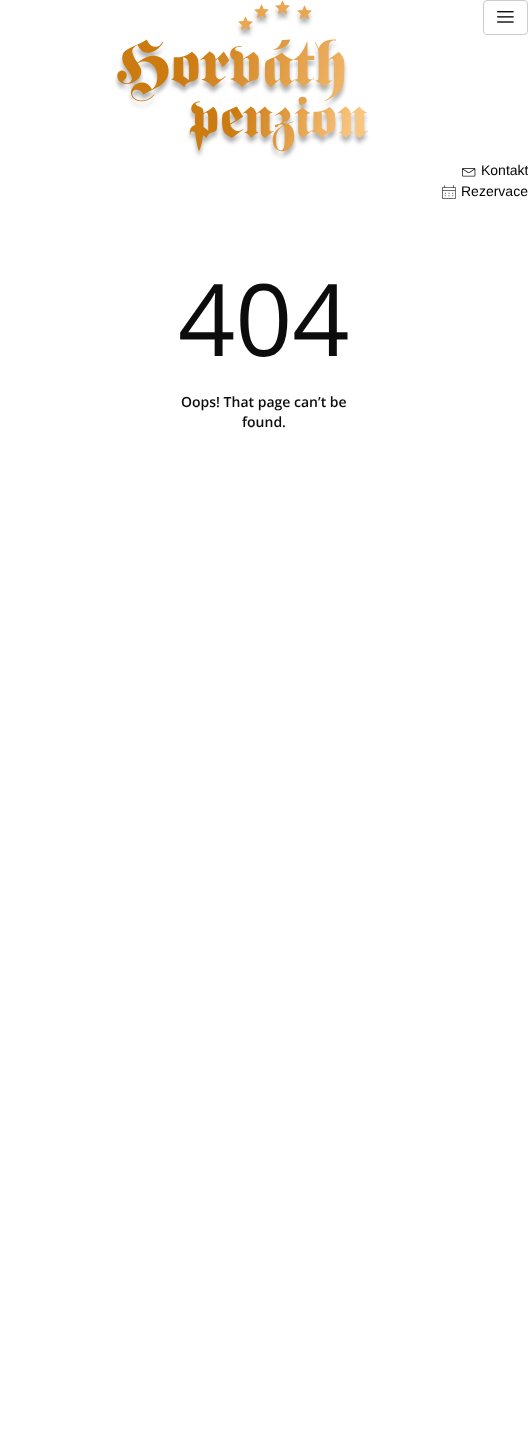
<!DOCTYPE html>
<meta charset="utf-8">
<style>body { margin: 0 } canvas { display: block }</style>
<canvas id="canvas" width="528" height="1447"></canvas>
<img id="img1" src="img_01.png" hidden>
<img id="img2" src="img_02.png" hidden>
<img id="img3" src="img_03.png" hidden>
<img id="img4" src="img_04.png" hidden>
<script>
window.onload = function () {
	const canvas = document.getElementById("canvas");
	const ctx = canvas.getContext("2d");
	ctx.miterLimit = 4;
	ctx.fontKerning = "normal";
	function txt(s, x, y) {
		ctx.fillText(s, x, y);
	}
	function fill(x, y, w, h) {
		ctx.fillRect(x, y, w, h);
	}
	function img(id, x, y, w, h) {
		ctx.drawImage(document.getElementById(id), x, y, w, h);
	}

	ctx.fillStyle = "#FFFFFF";
	fill(0, 0, 528, 1447);
	img("img1", 114, 0, 255, 159);
	ctx.beginPath();
	ctx.roundRect(483.5, 0.5, 44, 34, 3.5);
	ctx.strokeStyle = "#CCCCCC";
	ctx.stroke();
	img("img2", 497, 11, 17, 12);
	img("img3", 462, 168, 14, 9);
	img("img4", 442, 185, 14, 14);
	ctx.font = "14px Liberation Sans";
	ctx.fillStyle = "#000000";
	txt("Kontakt", 481, 175);
	txt("Rezervace", 461, 196);
	ctx.font = "100px Open Sans";
	ctx.fillStyle = "#0C0C0C";
	txt("404", 178, 356);
	ctx.font = "600 14px Open Sans";
	txt("Oops! That page can’t be", 181, 407);
	txt("found.", 242, 427);
};
</script>
